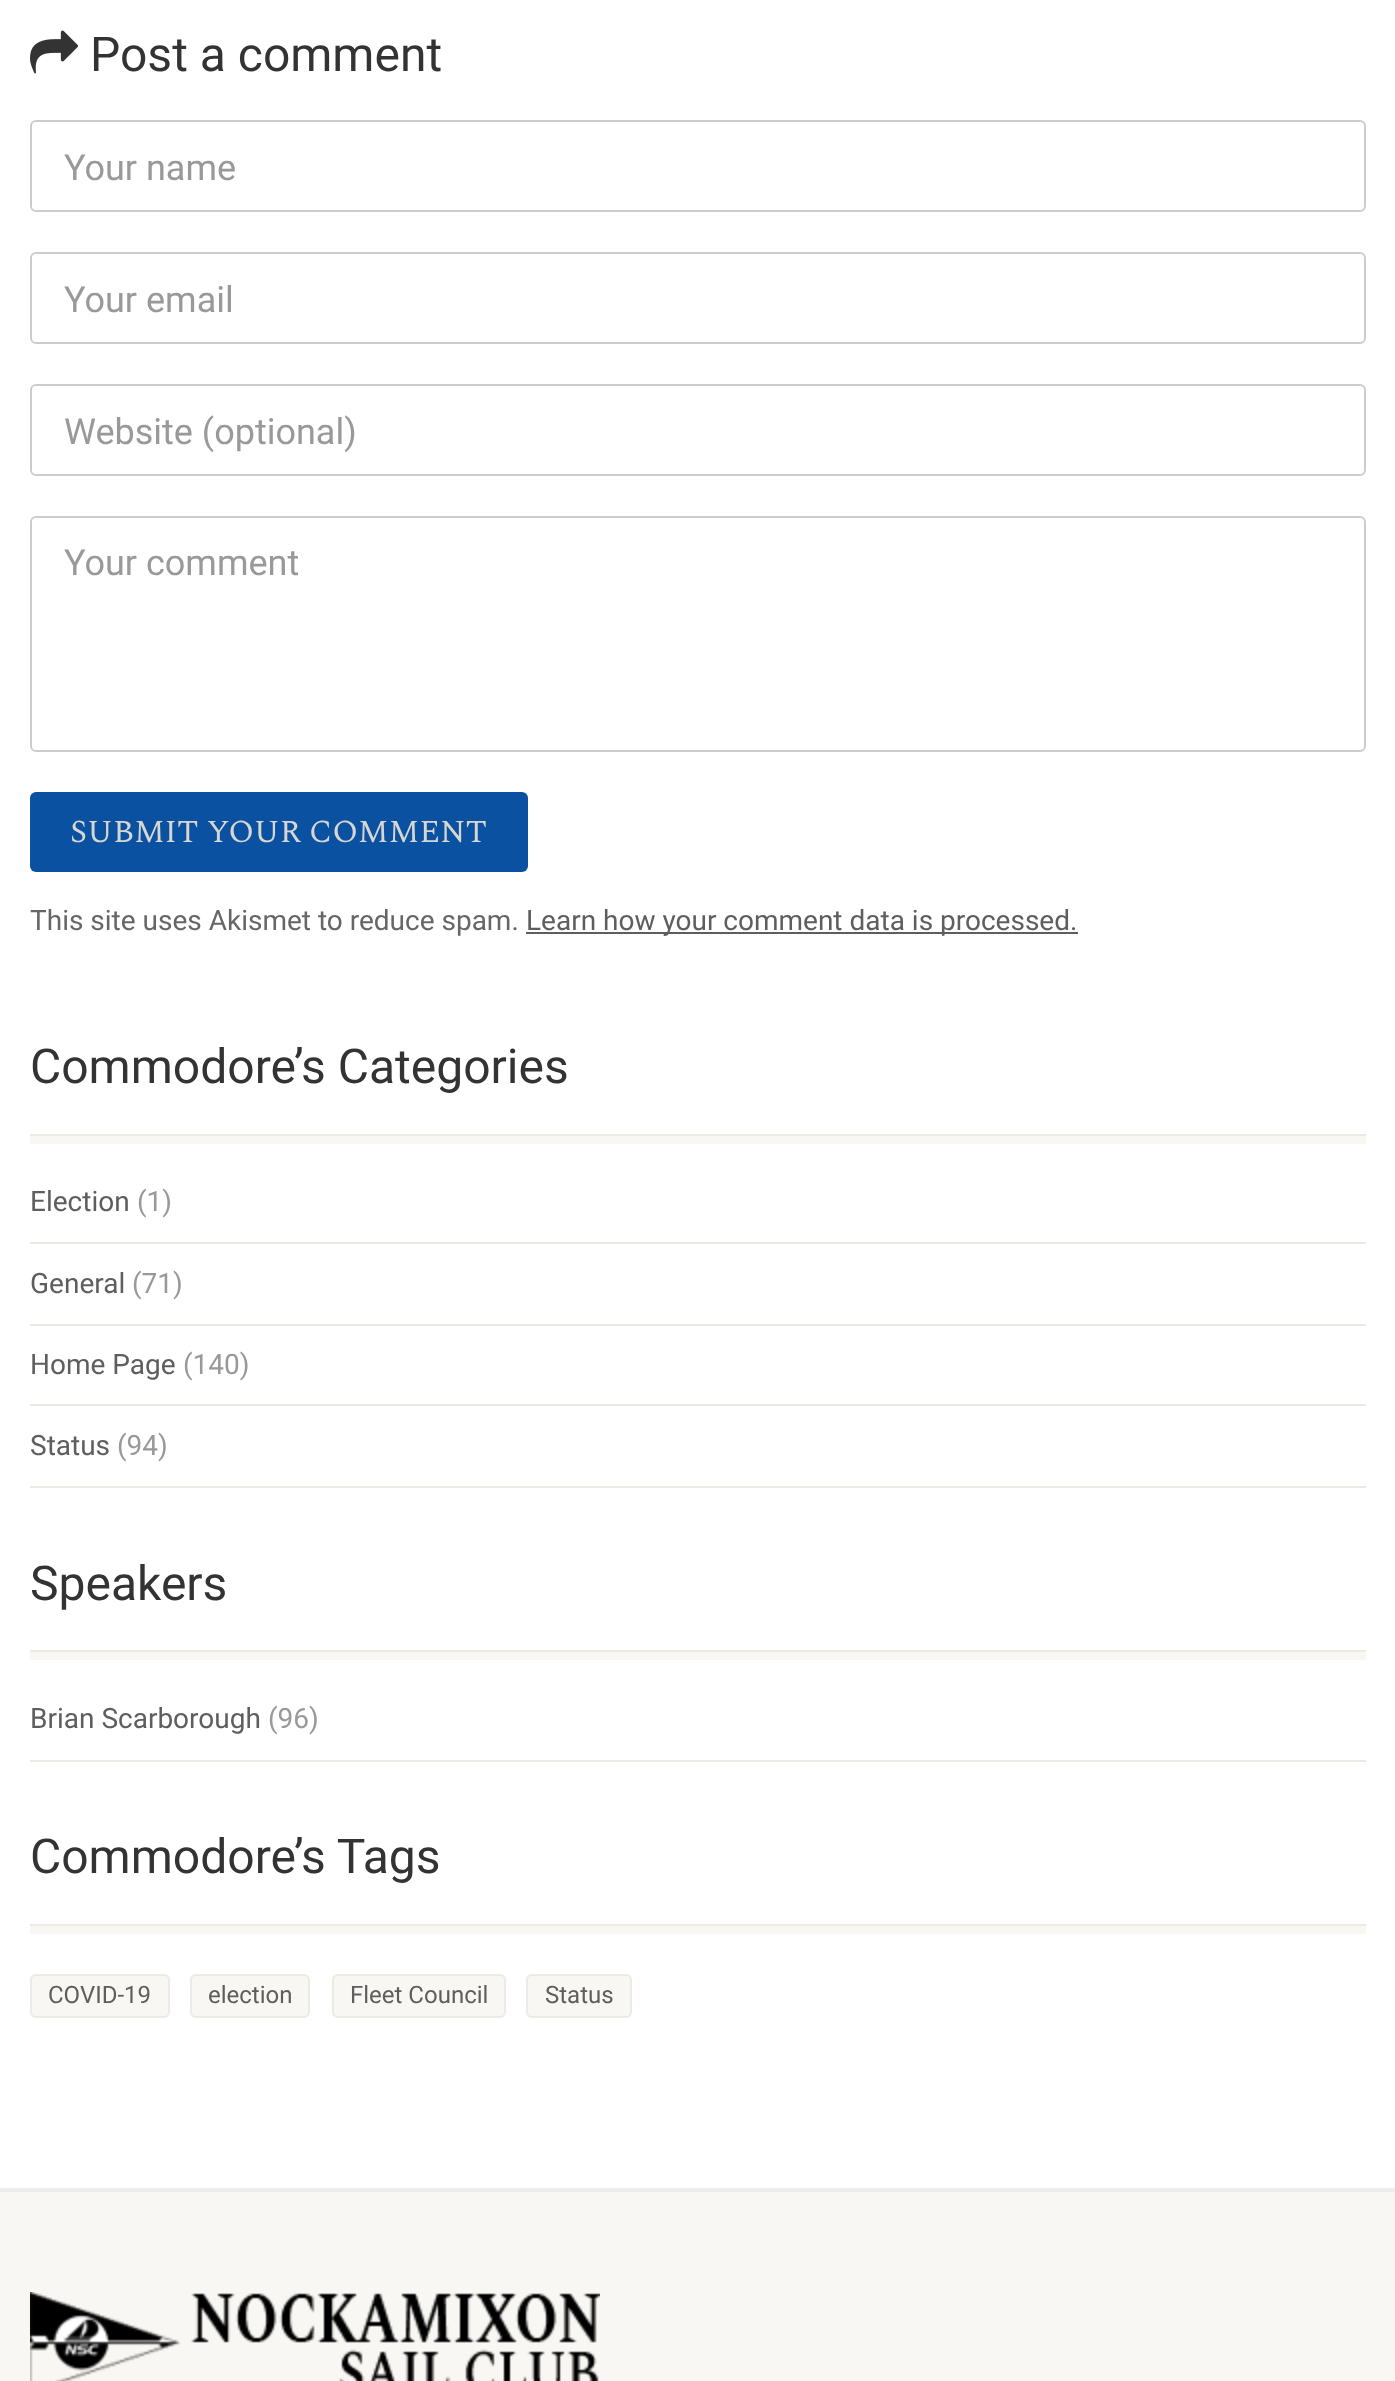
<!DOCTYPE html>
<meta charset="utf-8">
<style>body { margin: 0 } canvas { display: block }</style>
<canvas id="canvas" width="1395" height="2381"></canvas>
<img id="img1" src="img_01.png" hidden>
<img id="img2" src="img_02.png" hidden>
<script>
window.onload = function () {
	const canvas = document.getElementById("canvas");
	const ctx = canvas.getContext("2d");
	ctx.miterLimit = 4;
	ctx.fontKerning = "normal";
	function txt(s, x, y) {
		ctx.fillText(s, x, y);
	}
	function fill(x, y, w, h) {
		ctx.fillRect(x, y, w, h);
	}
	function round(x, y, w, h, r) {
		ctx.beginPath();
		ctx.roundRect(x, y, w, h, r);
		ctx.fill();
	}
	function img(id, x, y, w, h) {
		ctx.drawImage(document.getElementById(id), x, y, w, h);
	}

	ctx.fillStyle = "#FFFFFF";
	fill(0, 0, 1395, 2381);
	img("img1", 30, 30, 48, 44);
	ctx.beginPath();
	ctx.roundRect(31, 121, 1334, 90, 5);
	ctx.strokeStyle = "#CCCCCC";
	ctx.lineWidth = 2;
	ctx.stroke();
	ctx.beginPath();
	ctx.roundRect(31, 253, 1334, 90, 5);
	ctx.stroke();
	ctx.beginPath();
	ctx.roundRect(31, 385, 1334, 90, 5);
	ctx.stroke();
	ctx.beginPath();
	ctx.roundRect(31, 517, 1334, 234, 5);
	ctx.stroke();
	ctx.fillStyle = "#0A51A1";
	round(30, 792, 498, 80, 6);
	ctx.fillStyle = "#5E5E5E";
	fill(526, 932, 552, 2);
	ctx.fillStyle = "#F8F7F3";
	fill(30, 1136, 1336, 8);
	ctx.fillStyle = "#ECEAE4";
	fill(30, 1134, 1336, 2);
	fill(30, 1242, 1336, 2);
	fill(30, 1324, 1336, 2);
	fill(30, 1404, 1336, 2);
	fill(30, 1486, 1336, 2);
	ctx.fillStyle = "#F8F7F3";
	fill(30, 1652, 1336, 8);
	ctx.fillStyle = "#ECEAE4";
	fill(30, 1650, 1336, 2);
	fill(30, 1760, 1336, 2);
	ctx.fillStyle = "#F8F7F3";
	fill(30, 1926, 1336, 8);
	ctx.fillStyle = "#ECEAE4";
	fill(30, 1924, 1336, 2);
	ctx.fillStyle = "#F8F7F3";
	ctx.beginPath();
	ctx.roundRect(31, 1975, 138, 42, 5);
	ctx.fill();
	ctx.strokeStyle = "#ECEAE4";
	ctx.stroke();
	ctx.beginPath();
	ctx.roundRect(191, 1975, 118, 42, 5);
	ctx.fill();
	ctx.stroke();
	ctx.beginPath();
	ctx.roundRect(333, 1975, 172, 42, 5);
	ctx.fill();
	ctx.stroke();
	ctx.beginPath();
	ctx.roundRect(527, 1975, 104, 42, 5);
	ctx.fill();
	ctx.stroke();
	ctx.fillStyle = "#EDEDED";
	fill(0, 2188, 1395, 4);
	ctx.fillStyle = "#F8F7F3";
	fill(0, 2192, 1395, 189);
	img("img2", 30, 2292, 570, 89);
	ctx.font = "48px Roboto";
	ctx.fillStyle = "#333333";
	txt("Post a comment", 90, 71);
	ctx.font = "36px Roboto";
	ctx.fillStyle = "#999999";
	txt("Your name", 64, 180);
	txt("Your email", 64, 312);
	txt("Website (optional)", 64, 444);
	txt("Your comment", 64, 575);
	ctx.font = "32px Spectral";
	ctx.fillStyle = "#D8D6D1";
	txt("SUBMIT YOUR COMMENT", 70, 842);
	ctx.font = "28px Roboto";
	ctx.fillStyle = "#666666";
	txt("This site uses Akismet to reduce spam.", 30, 930);
	ctx.fillStyle = "#5E5E5E";
	txt("Learn how your comment data is processed.", 526, 930);
	ctx.font = "48px Roboto";
	ctx.fillStyle = "#333333";
	txt("Commodore’s Categories", 30, 1083);
	ctx.font = "28px Roboto";
	ctx.fillStyle = "#5E5E5E";
	txt("Election", 30, 1211);
	ctx.fillStyle = "#999999";
	txt("(1)", 137, 1211);
	ctx.fillStyle = "#5E5E5E";
	txt("General", 30, 1293);
	ctx.fillStyle = "#999999";
	txt("(71)", 132, 1293);
	ctx.fillStyle = "#5E5E5E";
	txt("Home Page", 30, 1374);
	ctx.fillStyle = "#999999";
	txt("(140)", 183, 1374);
	ctx.fillStyle = "#5E5E5E";
	txt("Status", 30, 1455);
	ctx.fillStyle = "#999999";
	txt("(94)", 117, 1455);
	ctx.font = "48px Roboto";
	ctx.fillStyle = "#333333";
	txt("Speakers", 30, 1600);
	ctx.font = "28px Roboto";
	ctx.fillStyle = "#5E5E5E";
	txt("Brian Scarborough", 30, 1728);
	ctx.fillStyle = "#999999";
	txt("(96)", 268, 1728);
	ctx.font = "48px Roboto";
	ctx.fillStyle = "#333333";
	txt("Commodore’s Tags", 30, 1873);
	ctx.font = "24px Roboto";
	ctx.fillStyle = "#5E5E5E";
	txt("COVID-19", 48, 2003);
	txt("election", 208, 2003);
	txt("Fleet Council", 350, 2003);
	txt("Status", 545, 2003);
};
</script>
